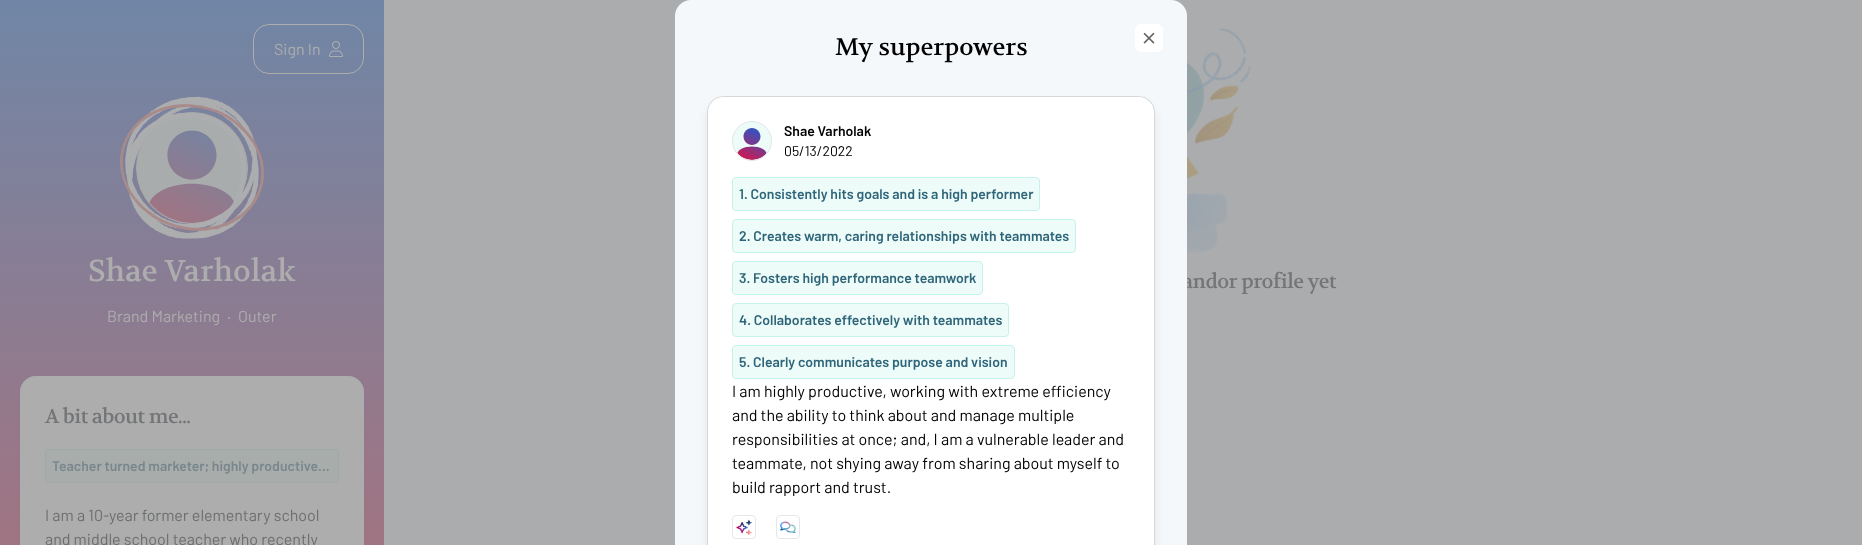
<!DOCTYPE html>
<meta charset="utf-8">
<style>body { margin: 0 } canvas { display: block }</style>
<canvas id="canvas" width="1862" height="545"></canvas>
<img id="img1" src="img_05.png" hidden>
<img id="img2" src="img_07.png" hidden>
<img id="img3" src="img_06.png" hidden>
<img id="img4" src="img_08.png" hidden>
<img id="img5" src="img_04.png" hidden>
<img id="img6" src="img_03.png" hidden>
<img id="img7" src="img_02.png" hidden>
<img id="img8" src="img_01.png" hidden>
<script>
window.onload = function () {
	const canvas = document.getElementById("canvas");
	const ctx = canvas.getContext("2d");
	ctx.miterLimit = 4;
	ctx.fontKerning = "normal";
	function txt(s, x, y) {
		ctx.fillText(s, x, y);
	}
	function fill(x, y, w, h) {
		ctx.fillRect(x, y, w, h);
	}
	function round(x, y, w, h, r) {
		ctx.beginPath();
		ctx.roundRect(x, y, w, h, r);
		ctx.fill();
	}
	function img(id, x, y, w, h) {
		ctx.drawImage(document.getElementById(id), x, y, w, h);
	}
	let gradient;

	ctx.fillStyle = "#AAACAD";
	fill(0, 0, 1862, 545);
	gradient = ctx.createLinearGradient(192, 0, 192, 545);
	gradient.addColorStop(0, "#7086A6");
	gradient.addColorStop(1, "#A07482");
	ctx.fillStyle = gradient;
	fill(0, 0, 384, 545);
	ctx.beginPath();
	ctx.roundRect(253.5, 24.5, 110, 49, 15.5);
	ctx.strokeStyle = "#ADADAE";
	ctx.stroke();
	img("img1", 329, 41, 14, 16);
	ctx.fillStyle = "#A8ADAC";
	ctx.beginPath();
	ctx.arc(192, 168, 55.5, 0, Math.PI * 2);
	ctx.fill();
	ctx.strokeStyle = "#A6A7A9";
	ctx.stroke();
	img("img2", 149, 115, 86, 108);
	img("img3", 120, 96, 144, 143);
	ctx.fillStyle = "#ADADAE";
	ctx.beginPath();
	ctx.arc(229, 318, 1, 0, Math.PI * 2);
	ctx.fill();
	ctx.beginPath();
	ctx.roundRect(20, 376, 344, 169, [16, 16, 0, 0]);
	ctx.fill();
	ctx.beginPath();
	ctx.roundRect(20.5, 376.5, 343, 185, 15.5);
	ctx.strokeStyle = "#ABACAD";
	ctx.stroke();
	ctx.fillStyle = "#A8ADAC";
	ctx.beginPath();
	ctx.roundRect(45.5, 449.5, 293, 33, 3.5);
	ctx.fill();
	ctx.strokeStyle = "#9EAAA9";
	ctx.stroke();
	img("img4", 1187, 28, 64, 225);
	ctx.font = "16px Barlow";
	ctx.fillStyle = "#ADADAE";
	txt("Sign In", 274, 55);
	ctx.font = "30px Volkhov";
	txt("Shae Varholak", 88, 281);
	ctx.font = "16px Barlow";
	txt("Brand Marketing", 107, 322);
	txt("Outer", 238, 322);
	ctx.letterSpacing = "-0.5px";
	ctx.font = "20px Volkhov";
	ctx.fillStyle = "#737576";
	txt("A bit about me...", 45, 423);
	ctx.letterSpacing = "0px";
	ctx.font = "600 14px Barlow";
	ctx.fillStyle = "#79878D";
	txt("Teacher turned marketer; highly productive…", 52, 471);
	ctx.font = "16px Barlow";
	ctx.fillStyle = "#6D6E6E";
	txt("I am a 10-year former elementary school", 45, 521);
	txt("and middle school teacher who recently", 45, 545);
	ctx.letterSpacing = "-0.5px";
	ctx.font = "20px Volkhov";
	ctx.fillStyle = "#737576";
	txt("andor profile yet", 1182, 288);
	ctx.fillStyle = "#F5F8FA";
	ctx.beginPath();
	ctx.roundRect(675, 0, 512, 545, [16, 16, 0, 0]);
	ctx.fill();
	ctx.fillStyle = "#FFFFFF";
	round(1135, 24, 28, 28, 6);
	img("img5", 1143, 32, 12, 12);
	ctx.fillStyle = "rgba(0, 0, 0, 0.07)";
	ctx.filter = "blur(5px)";
	ctx.beginPath();
	ctx.roundRect(707, 104, 448, 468, 16);
	ctx.fill();
	ctx.filter = "none";
	ctx.beginPath();
	ctx.roundRect(707.5, 96.5, 447, 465, 15.5);
	ctx.strokeStyle = "#D8D8D8";
	ctx.stroke();
	ctx.fillStyle = "#FFFFFF";
	ctx.beginPath();
	ctx.roundRect(708, 97, 446, 448, [16, 16, 0, 0]);
	ctx.fill();
	ctx.fillStyle = "#EDFCF8";
	ctx.beginPath();
	ctx.roundRect(732.5, 345.5, 282, 33, 3.5);
	ctx.fill();
	ctx.strokeStyle = "#C6F2EC";
	ctx.stroke();
	ctx.letterSpacing = "0px";
	ctx.font = "600 14px Barlow";
	ctx.fillStyle = "#2F657A";
	txt("5. Clearly communicates purpose and vision", 739, 367);
	ctx.fillStyle = "#EDFCF8";
	ctx.beginPath();
	ctx.roundRect(732.5, 303.5, 276, 33, 3.5);
	ctx.fill();
	ctx.stroke();
	ctx.fillStyle = "#2F657A";
	txt("4. Collaborates effectively with teammates", 739, 325);
	ctx.fillStyle = "#EDFCF8";
	ctx.beginPath();
	ctx.roundRect(732.5, 261.5, 250, 33, 3.5);
	ctx.fill();
	ctx.stroke();
	ctx.fillStyle = "#2F657A";
	txt("3. Fosters high performance teamwork", 739, 283);
	ctx.fillStyle = "#EDFCF8";
	ctx.beginPath();
	ctx.roundRect(732.5, 219.5, 343, 33, 3.5);
	ctx.fill();
	ctx.stroke();
	ctx.fillStyle = "#2F657A";
	txt("2. Creates warm, caring relationships with teammates", 739, 241);
	ctx.fillStyle = "#EDFCF8";
	ctx.beginPath();
	ctx.roundRect(732.5, 177.5, 307, 33, 3.5);
	ctx.fill();
	ctx.stroke();
	ctx.fillStyle = "#2F657A";
	txt("1. Consistently hits goals and is a high performer", 739, 199);
	ctx.beginPath();
	ctx.roundRect(776.5, 515.5, 23, 23, 3.5);
	ctx.strokeStyle = "#E3E7E9";
	ctx.stroke();
	img("img6", 780, 521, 16, 12);
	ctx.beginPath();
	ctx.roundRect(732.5, 515.5, 23, 23, 3.5);
	ctx.stroke();
	img("img7", 736, 519, 16, 16);
	ctx.font = "16px Barlow";
	ctx.fillStyle = "#000000";
	txt("build rapport and trust.", 732, 493);
	txt("teammate, not shying away from sharing about myself to", 732, 469);
	txt("responsibilities at once; and, I am a vulnerable leader and", 732, 445);
	txt("and the ability to think about and manage multiple", 732, 421);
	txt("I am highly productive, working with extreme efficiency", 732, 397);
	ctx.font = "14px Barlow";
	txt("05/13/2022", 784, 156);
	ctx.font = "600 14px Barlow";
	txt("Shae Varholak", 784, 136);
	ctx.fillStyle = "#EDFCF8";
	ctx.beginPath();
	ctx.arc(752, 141, 19.5, 0, Math.PI * 2);
	ctx.fill();
	ctx.stroke();
	img("img8", 737, 128, 30, 32);
	ctx.font = "24px Volkhov";
	ctx.fillStyle = "#000000";
	txt("My superpowers", 835, 55);
};
</script>
